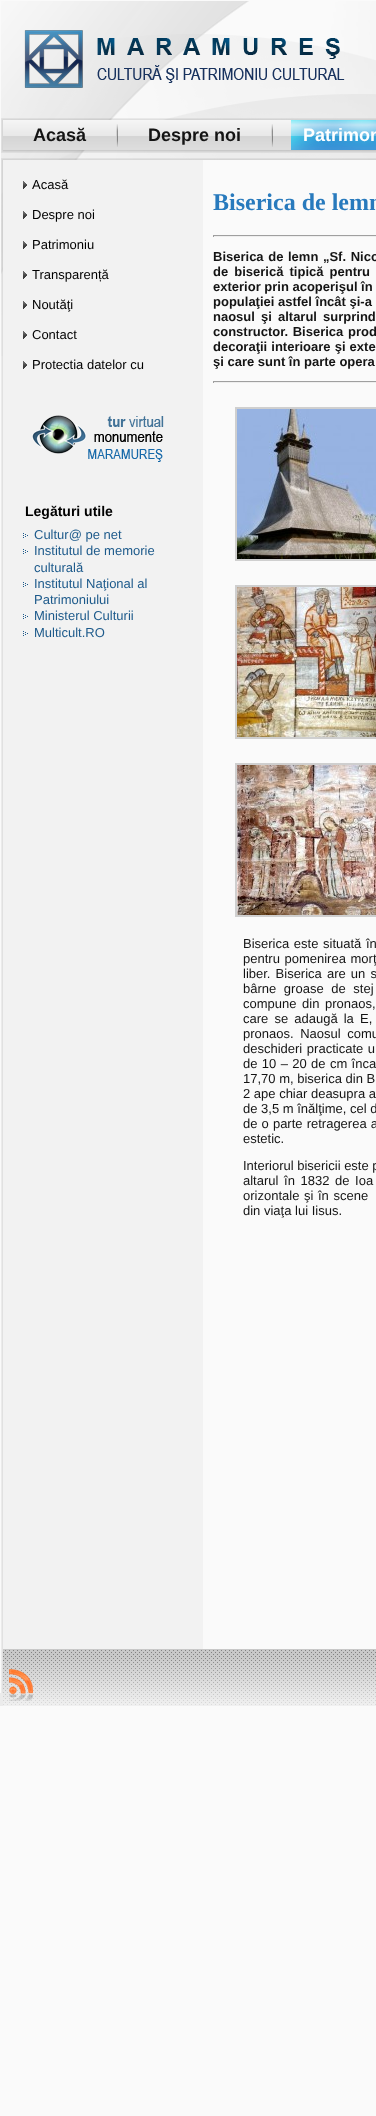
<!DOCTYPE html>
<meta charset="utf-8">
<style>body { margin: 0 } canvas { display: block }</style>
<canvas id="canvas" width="376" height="2116"></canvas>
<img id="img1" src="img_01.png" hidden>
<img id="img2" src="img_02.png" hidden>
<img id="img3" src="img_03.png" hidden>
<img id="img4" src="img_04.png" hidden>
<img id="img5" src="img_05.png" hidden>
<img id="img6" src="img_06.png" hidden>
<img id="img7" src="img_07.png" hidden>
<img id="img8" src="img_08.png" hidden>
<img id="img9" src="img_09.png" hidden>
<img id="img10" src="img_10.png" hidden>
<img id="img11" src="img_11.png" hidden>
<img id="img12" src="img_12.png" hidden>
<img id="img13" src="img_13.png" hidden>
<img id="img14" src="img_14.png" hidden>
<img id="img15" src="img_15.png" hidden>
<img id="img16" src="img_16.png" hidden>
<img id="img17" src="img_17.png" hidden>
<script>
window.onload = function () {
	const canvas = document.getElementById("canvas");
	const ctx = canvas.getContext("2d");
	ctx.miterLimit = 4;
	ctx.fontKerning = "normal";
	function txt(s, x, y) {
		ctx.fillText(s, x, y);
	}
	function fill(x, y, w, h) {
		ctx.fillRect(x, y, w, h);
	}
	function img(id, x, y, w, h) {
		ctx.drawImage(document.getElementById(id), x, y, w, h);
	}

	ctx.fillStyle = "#FAFAFA";
	fill(0, 0, 376, 2116);
	img("img1", 1, 1, 375, 355);
	img("img2", 24, 30, 321, 58);
	img("img3", 1, 118, 375, 35);
	img("img4", 116, 124, 2, 23);
	img("img4", 271, 124, 2, 23);
	img("img5", 291, 120, 85, 30);
	img("img6", 1, 158, 12, 12);
	img("img7", 13, 158, 363, 12);
	img("img8", 1, 170, 2, 1523);
	fill(203, 170, 173, 186);
	ctx.fillStyle = "#F2F2F2";
	fill(3, 160, 200, 1489);
	img("img9", 23, 181, 4, 8);
	img("img9", 23, 211, 4, 8);
	img("img9", 23, 241, 4, 8);
	img("img9", 23, 271, 4, 8);
	img("img9", 23, 301, 4, 8);
	img("img9", 23, 331, 4, 8);
	img("img9", 23, 361, 4, 8);
	img("img10", 32, 415, 132, 47);
	img("img11", 23, 533, 5, 5);
	img("img11", 23, 549, 5, 5);
	img("img11", 23, 582, 5, 5);
	img("img11", 23, 614, 5, 5);
	img("img11", 23, 631, 5, 5);
	ctx.fillStyle = "#9F9F9F";
	fill(213, 235, 163, 1);
	ctx.fillStyle = "#EEEEEE";
	fill(213, 236, 163, 1);
	ctx.fillStyle = "#9F9F9F";
	fill(213, 235, 1, 2);
	fill(213, 381, 163, 1);
	ctx.fillStyle = "#EEEEEE";
	fill(213, 382, 163, 1);
	ctx.fillStyle = "#9F9F9F";
	fill(213, 381, 1, 2);
	ctx.strokeStyle = "#CFCFCF";
	ctx.lineWidth = 2;
	ctx.strokeRect(236, 408, 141, 152);
	img("img12", 237, 409, 139, 150);
	ctx.strokeRect(236, 586, 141, 152);
	img("img13", 237, 587, 139, 150);
	ctx.strokeRect(236, 764, 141, 152);
	img("img14", 237, 765, 139, 150);
	img("img15", 3, 1649, 373, 7);
	img("img16", 3, 1656, 373, 50);
	img("img17", 9, 1669, 24, 32);
	ctx.fillStyle = "#EBEBEB";
	fill(0, 1693, 3, 13);
	ctx.font = "bold 18px Liberation Sans";
	ctx.fillStyle = "#141414";
	txt("Acasă", 33, 141);
	txt("Despre noi", 148, 141);
	ctx.fillStyle = "#FFFFFF";
	txt("Patrimon", 303, 141);
	ctx.font = "13px Liberation Sans";
	ctx.fillStyle = "#000000";
	txt("Acasă", 32, 189);
	txt("Despre noi", 32, 219);
	txt("Patrimoniu", 32, 249);
	txt("Transparență", 32, 279);
	txt("Noutăţi", 32, 309);
	txt("Contact", 32, 339);
	txt("Protectia datelor cu", 32, 369);
	ctx.font = "bold 14px Liberation Sans";
	txt("Legături utile", 25, 516);
	ctx.font = "13px Liberation Sans";
	ctx.fillStyle = "#1D5A8B";
	txt("Cultur@ pe net", 34, 539);
	txt("Institutul de memorie", 34, 555);
	txt("culturală", 34, 572);
	txt("Institutul Naţional al", 34, 588);
	txt("Patrimoniului", 34, 604);
	txt("Ministerul Culturii", 34, 620);
	txt("Multicult.RO", 34, 637);
	ctx.font = "bold 24px Liberation Serif";
	ctx.fillStyle = "#287ABD";
	txt("Biserica de lemn", 213, 210);
	ctx.wordSpacing = "1px";
	ctx.font = "bold 13px Liberation Sans";
	ctx.fillStyle = "#141414";
	txt("Biserica de lemn „Sf. Nico", 213, 261);
	ctx.wordSpacing = "2.5px";
	txt("de biserică tipică pentru", 213, 276);
	ctx.wordSpacing = "0px";
	txt("exterior prin acoperişul în", 213, 291);
	txt("populaţiei astfel încât şi-a", 213, 306);
	ctx.wordSpacing = "2.5px";
	txt("naosul şi altarul surprind", 213, 321);
	ctx.wordSpacing = "1px";
	txt("constructor. Biserica prod", 213, 336);
	ctx.wordSpacing = "0.5px";
	txt("decoraţii interioare şi exte", 213, 351);
	ctx.wordSpacing = "0px";
	txt("şi care sunt în parte opera", 213, 366);
	ctx.wordSpacing = "1px";
	ctx.font = "13px Liberation Sans";
	txt("Biserica este situată în", 243, 948);
	txt("pentru pomenirea morţ", 243, 963);
	ctx.wordSpacing = "1.5px";
	txt("liber. Biserica are un s", 243, 978);
	ctx.wordSpacing = "4px";
	txt("bârne groase de stej", 243, 993);
	ctx.wordSpacing = "2px";
	txt("compune din pronaos,", 243, 1008);
	ctx.wordSpacing = "2.5px";
	txt("care se adaugă la E,", 243, 1023);
	ctx.wordSpacing = "3px";
	txt("pronaos. Naosul comu", 243, 1038);
	ctx.wordSpacing = "1px";
	txt("deschideri practicate u", 243, 1053);
	ctx.wordSpacing = "0.75px";
	txt("de 10 – 20 de cm înca", 243, 1068);
	ctx.wordSpacing = "0px";
	txt("17,70 m, biserica din B", 243, 1083);
	txt("2 ape chiar deasupra a", 243, 1098);
	txt("de 3,5 m înălţime, cel d", 243, 1113);
	ctx.wordSpacing = "0.5px";
	txt("de o parte retragerea a", 243, 1128);
	ctx.wordSpacing = "0px";
	txt("estetic.", 243, 1143);
	txt("Interiorul bisericii este p", 243, 1170);
	ctx.wordSpacing = "2px";
	txt("altarul în 1832 de Ioa", 243, 1185);
	ctx.wordSpacing = "1px";
	txt("orizontale şi în scene", 243, 1200);
	ctx.wordSpacing = "0px";
	txt("din viaţa lui Iisus.", 243, 1215);
};
</script>
